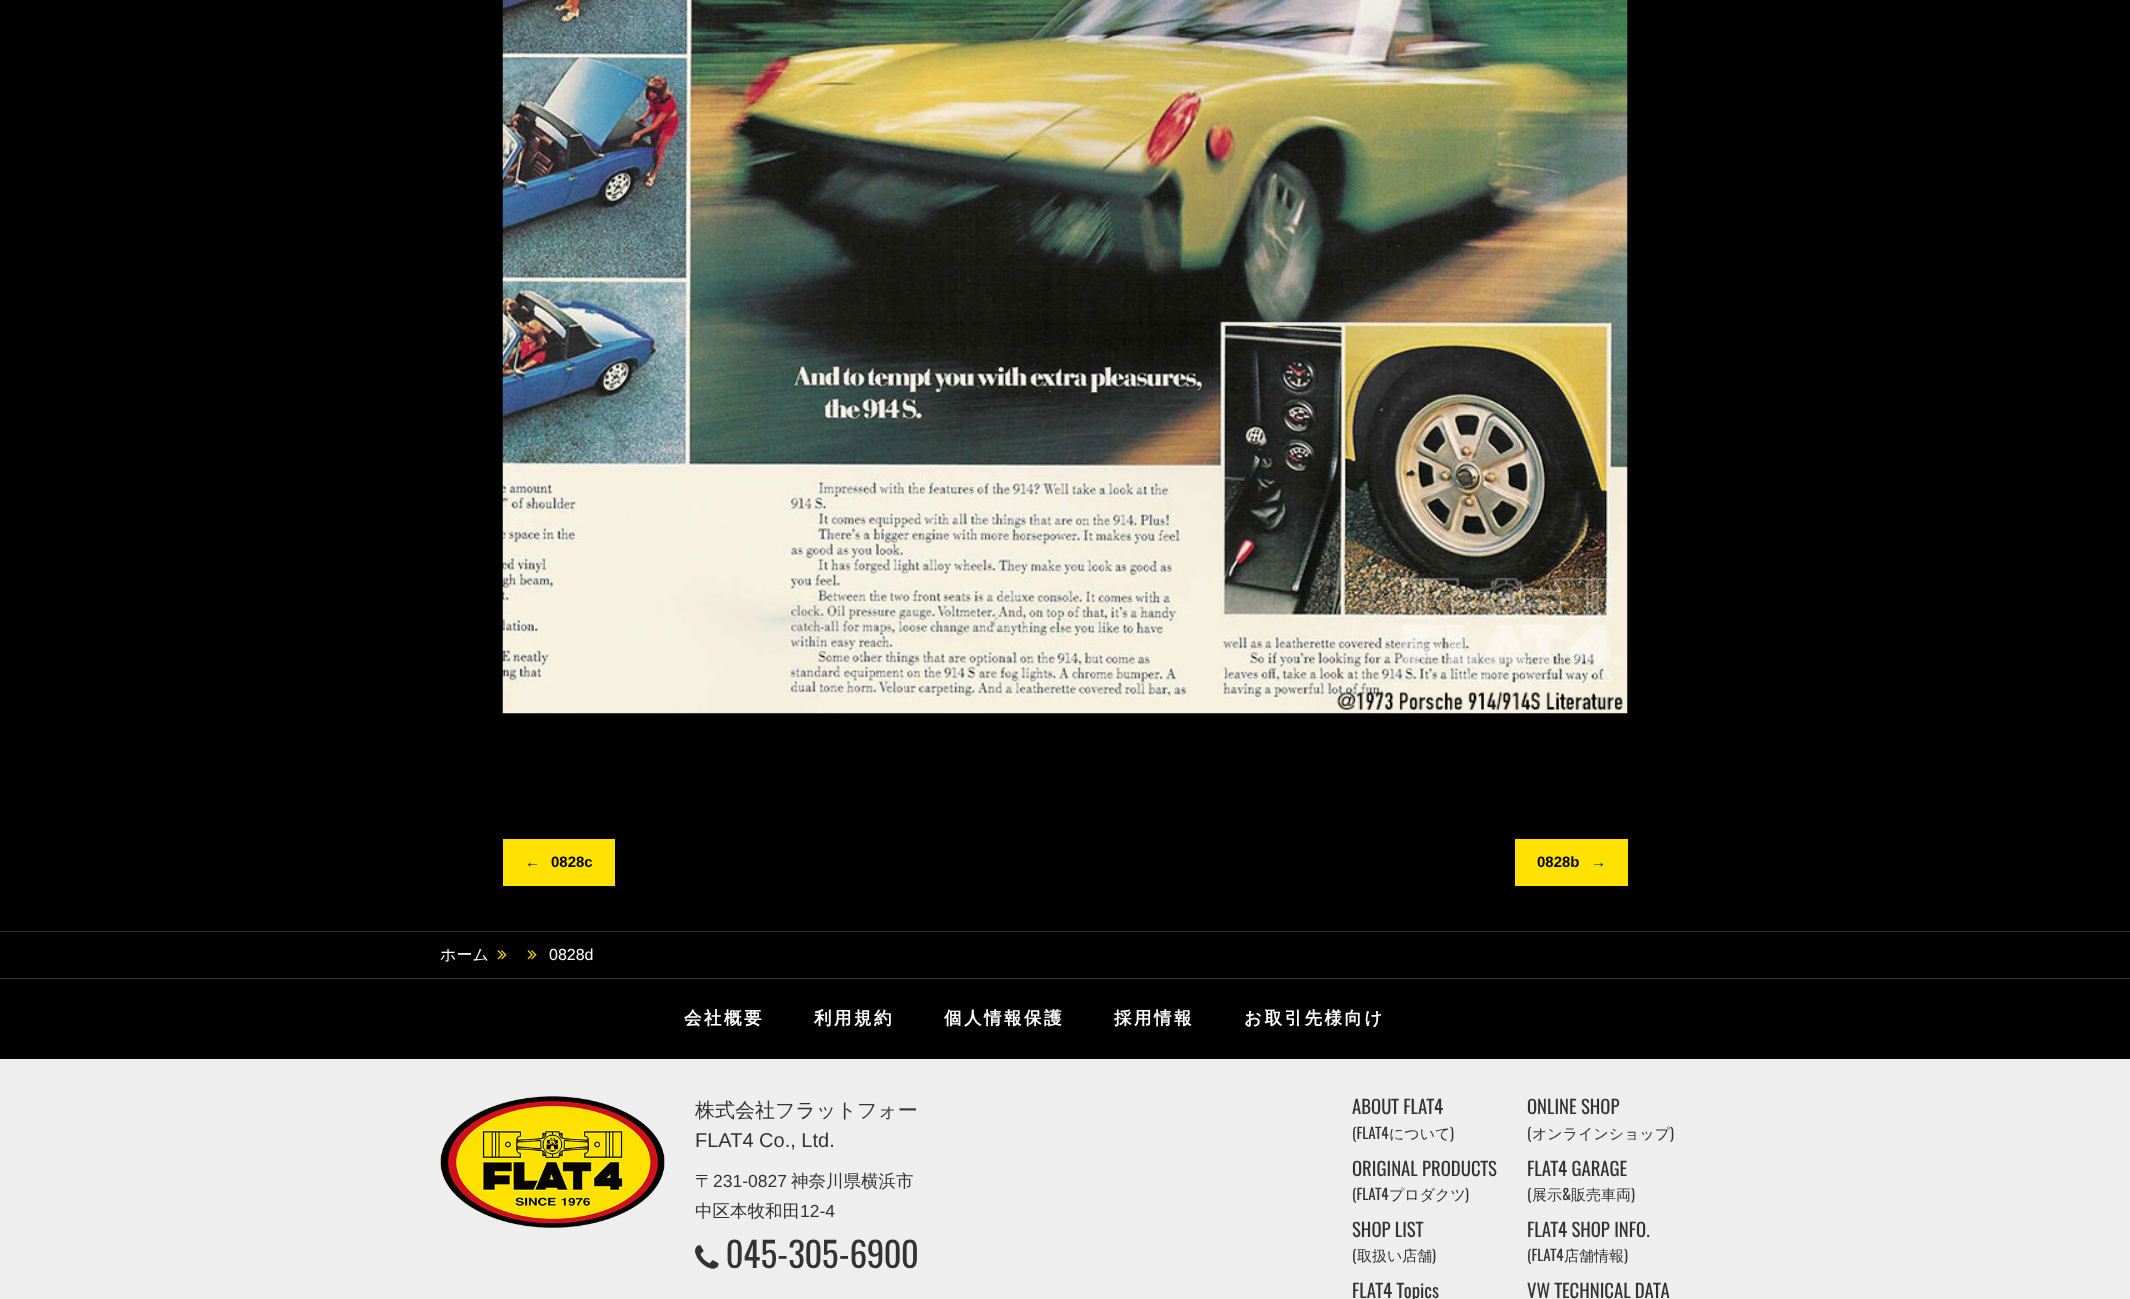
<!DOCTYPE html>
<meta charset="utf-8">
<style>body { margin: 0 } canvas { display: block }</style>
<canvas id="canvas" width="2130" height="1299"></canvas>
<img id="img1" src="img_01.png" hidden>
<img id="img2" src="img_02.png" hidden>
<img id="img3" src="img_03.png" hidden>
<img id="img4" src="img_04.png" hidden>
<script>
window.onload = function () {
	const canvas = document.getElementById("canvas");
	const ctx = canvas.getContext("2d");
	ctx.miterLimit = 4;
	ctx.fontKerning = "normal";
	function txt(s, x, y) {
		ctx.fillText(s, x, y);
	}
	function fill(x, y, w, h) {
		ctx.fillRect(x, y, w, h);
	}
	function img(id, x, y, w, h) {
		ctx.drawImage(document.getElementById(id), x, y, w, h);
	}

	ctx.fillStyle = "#000000";
	fill(0, 0, 2130, 1299);
	img("img1", 502, 0, 1126, 714);
	ctx.fillStyle = "#FFE100";
	fill(503, 839, 112, 47);
	fill(1515, 839, 113, 47);
	ctx.fillStyle = "#333333";
	fill(0, 931, 2130, 1);
	fill(0, 978, 2130, 1);
	img("img2", 497, 950, 10, 10);
	img("img2", 527, 950, 10, 10);
	ctx.fillStyle = "#EEEEEE";
	fill(0, 1059, 2130, 240);
	img("img3", 440, 1096, 225, 132);
	img("img4", 695, 1245, 24, 24);
	ctx.font = "bold 15px Liberation Serif";
	ctx.fillStyle = "#000000";
	txt("←", 525, 867);
	ctx.font = "bold 15px Liberation Sans";
	txt("0828c", 551, 867);
	txt("0828b", 1537, 867);
	ctx.font = "bold 15px Liberation Serif";
	txt("→", 1591, 867);
	ctx.font = "500 16px WenQuanYi Zen Hei";
	ctx.fillStyle = "#FFFFFF";
	txt("ホーム", 440, 960);
	ctx.font = "16px Liberation Sans";
	txt("0828d", 549, 960);
	ctx.letterSpacing = "2.5px";
	ctx.font = "bold 17.5px WenQuanYi Zen Hei";
	txt("会社概要", 684, 1024);
	txt("利用規約", 814, 1024);
	txt("個人情報保護", 944, 1024);
	txt("採用情報", 1114, 1024);
	txt("お取引先様向け", 1244, 1024);
	ctx.letterSpacing = "0px";
	ctx.font = "500 20px WenQuanYi Zen Hei";
	ctx.fillStyle = "#333333";
	txt("株式会社フラットフォー", 695, 1117);
	ctx.font = "20px Liberation Sans";
	txt("FLAT4 Co., Ltd.", 695, 1147);
	ctx.font = "500 17.5px WenQuanYi Zen Hei";
	txt("〒", 695, 1187);
	ctx.font = "17.5px Liberation Sans";
	txt("231-0827", 713, 1187);
	ctx.font = "500 17.5px WenQuanYi Zen Hei";
	txt("神奈川県横浜市", 791, 1187);
	txt("中区本牧和田", 695, 1217);
	ctx.font = "17.5px Liberation Sans";
	txt("12-4", 800, 1217);
	ctx.font = "35px Oswald";
	txt("045-305-6900", 726, 1268);
	ctx.font = "18.75px Oswald";
	txt("ABOUT FLAT4", 1352, 1114);
	ctx.font = "15px Oswald";
	txt("(FLAT4", 1352, 1139);
	ctx.font = "500 15px WenQuanYi Zen Hei";
	txt("について", 1389, 1139);
	ctx.font = "15px Oswald";
	txt(")", 1450, 1139);
	ctx.font = "18.75px Oswald";
	txt("ORIGINAL PRODUCTS", 1352, 1176);
	ctx.font = "15px Oswald";
	txt("(FLAT4", 1352, 1200);
	ctx.font = "500 15px WenQuanYi Zen Hei";
	txt("プロダクツ", 1389, 1200);
	ctx.font = "15px Oswald";
	txt(")", 1465, 1200);
	ctx.font = "18.75px Oswald";
	txt("SHOP LIST", 1352, 1237);
	ctx.font = "15px Oswald";
	txt("(", 1352, 1261);
	ctx.font = "500 15px WenQuanYi Zen Hei";
	txt("取扱い店舗", 1357, 1261);
	ctx.font = "15px Oswald";
	txt(")", 1432, 1261);
	ctx.font = "18.75px Oswald";
	txt("FLAT4 Topics", 1352, 1298);
	txt("ONLINE SHOP", 1527, 1114);
	ctx.font = "15px Oswald";
	txt("(", 1527, 1139);
	ctx.font = "500 15px WenQuanYi Zen Hei";
	txt("オンラインショップ", 1532, 1139);
	ctx.font = "15px Oswald";
	txt(")", 1670, 1139);
	ctx.font = "18.75px Oswald";
	txt("FLAT4 GARAGE", 1527, 1176);
	ctx.font = "15px Oswald";
	txt("(", 1527, 1200);
	ctx.font = "500 15px WenQuanYi Zen Hei";
	txt("展示", 1532, 1200);
	ctx.font = "15px Oswald";
	txt("&", 1562, 1200);
	ctx.font = "500 15px WenQuanYi Zen Hei";
	txt("販売車両", 1571, 1200);
	ctx.font = "15px Oswald";
	txt(")", 1631, 1200);
	ctx.font = "18.75px Oswald";
	txt("FLAT4 SHOP INFO.", 1527, 1237);
	ctx.font = "15px Oswald";
	txt("(FLAT4", 1527, 1261);
	ctx.font = "500 15px WenQuanYi Zen Hei";
	txt("店舗情報", 1564, 1261);
	ctx.font = "15px Oswald";
	txt(")", 1624, 1261);
	ctx.font = "18.75px Oswald";
	txt("VW TECHNICAL DATA", 1527, 1298);
};
</script>
